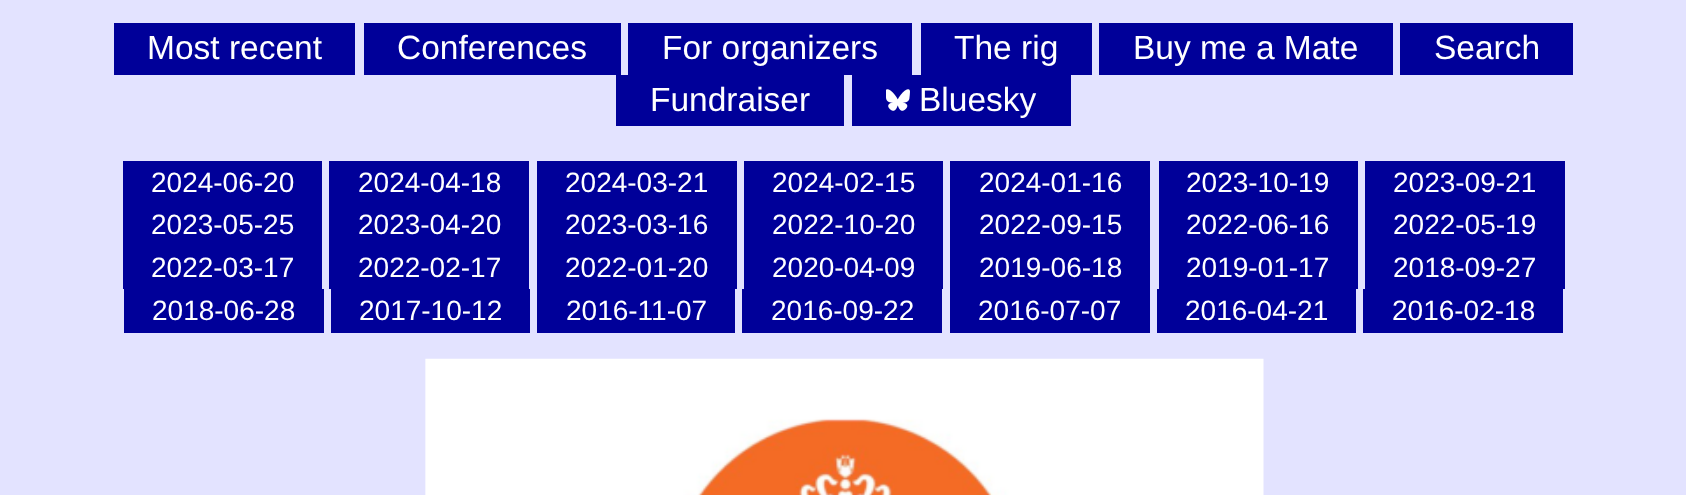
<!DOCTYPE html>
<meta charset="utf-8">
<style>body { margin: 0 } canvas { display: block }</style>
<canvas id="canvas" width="1686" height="495"></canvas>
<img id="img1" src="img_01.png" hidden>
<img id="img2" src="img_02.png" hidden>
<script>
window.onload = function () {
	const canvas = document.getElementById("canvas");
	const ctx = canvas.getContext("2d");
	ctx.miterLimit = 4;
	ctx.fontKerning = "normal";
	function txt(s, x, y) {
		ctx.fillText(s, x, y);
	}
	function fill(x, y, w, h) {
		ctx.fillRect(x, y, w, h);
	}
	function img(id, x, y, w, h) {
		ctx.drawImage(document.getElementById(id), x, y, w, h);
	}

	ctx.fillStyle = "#E3E3FF";
	fill(0, 0, 1686, 495);
	ctx.fillStyle = "#000099";
	fill(114, 23, 241, 52);
	fill(364, 23, 257, 52);
	fill(628, 23, 284, 52);
	fill(921, 23, 171, 52);
	fill(1099, 23, 294, 52);
	fill(1400, 23, 173, 52);
	fill(616, 75, 228, 51);
	fill(852, 75, 219, 51);
	img("img1", 886, 89, 24, 22);
	fill(123, 161, 199, 128);
	fill(329, 161, 200, 128);
	fill(537, 161, 200, 128);
	fill(744, 161, 199, 128);
	fill(950, 161, 200, 172);
	fill(1159, 161, 199, 128);
	fill(1365, 161, 200, 128);
	fill(124, 289, 200, 44);
	fill(331, 289, 199, 44);
	fill(537, 289, 198, 44);
	fill(742, 289, 200, 44);
	fill(1157, 289, 199, 44);
	fill(1363, 289, 200, 44);
	img("img2", 425, 358, 839, 137);
	ctx.font = "33.5px Liberation Sans";
	ctx.fillStyle = "#FFFFFF";
	txt("Most recent", 147, 59);
	txt("Conferences", 397, 59);
	txt("For organizers", 662, 59);
	txt("The rig", 954, 59);
	txt("Buy me a Mate", 1133, 59);
	txt("Search", 1434, 59);
	txt("Fundraiser", 650, 111);
	txt("Bluesky", 919, 111);
	ctx.font = "28px Liberation Sans";
	txt("2024-06-20", 151, 192);
	txt("2024-04-18", 358, 192);
	txt("2024-03-21", 565, 192);
	txt("2024-02-15", 772, 192);
	txt("2024-01-16", 979, 192);
	txt("2023-10-19", 1186, 192);
	txt("2023-09-21", 1393, 192);
	txt("2023-05-25", 151, 234);
	txt("2023-04-20", 358, 234);
	txt("2023-03-16", 565, 234);
	txt("2022-10-20", 772, 234);
	txt("2022-09-15", 979, 234);
	txt("2022-06-16", 1186, 234);
	txt("2022-05-19", 1393, 234);
	txt("2022-03-17", 151, 277);
	txt("2022-02-17", 358, 277);
	txt("2022-01-20", 565, 277);
	txt("2020-04-09", 772, 277);
	txt("2019-06-18", 979, 277);
	txt("2019-01-17", 1186, 277);
	txt("2018-09-27", 1393, 277);
	txt("2018-06-28", 152, 320);
	txt("2017-10-12", 359, 320);
	txt("2016-11-07", 566, 320);
	txt("2016-09-22", 771, 320);
	txt("2016-07-07", 978, 320);
	txt("2016-04-21", 1185, 320);
	txt("2016-02-18", 1392, 320);
};
</script>
